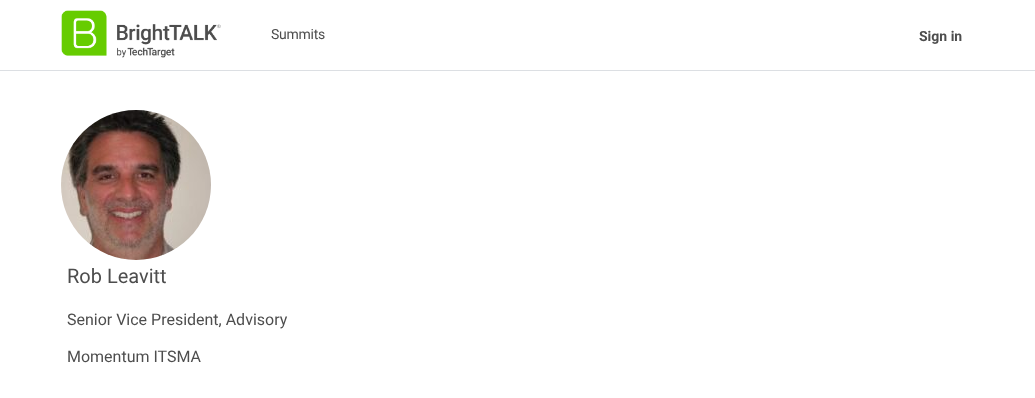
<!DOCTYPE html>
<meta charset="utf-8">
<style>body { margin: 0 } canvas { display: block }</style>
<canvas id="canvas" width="1035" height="398"></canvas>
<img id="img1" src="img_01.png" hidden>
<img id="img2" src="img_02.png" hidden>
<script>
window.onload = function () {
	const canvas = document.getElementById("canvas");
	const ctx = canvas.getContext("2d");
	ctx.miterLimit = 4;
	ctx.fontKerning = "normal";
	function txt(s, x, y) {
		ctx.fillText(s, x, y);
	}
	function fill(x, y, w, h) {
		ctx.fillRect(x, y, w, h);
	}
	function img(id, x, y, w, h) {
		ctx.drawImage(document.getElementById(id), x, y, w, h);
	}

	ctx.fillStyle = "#FFFFFF";
	fill(0, 0, 1035, 398);
	ctx.fillStyle = "#DCDFE3";
	fill(0, 70, 1035, 1);
	img("img1", 61, 10, 160, 48);
	img("img2", 61, 110, 150, 150);
	ctx.letterSpacing = "-0.25px";
	ctx.font = "14px Roboto";
	ctx.fillStyle = "#4D4D4D";
	txt("Summits", 271, 39);
	ctx.letterSpacing = "0px";
	ctx.font = "bold 14px Roboto";
	txt("Sign in", 919, 41);
	ctx.font = "20px Roboto";
	txt("Rob Leavitt", 67, 283);
	ctx.font = "16px Roboto";
	txt("Senior Vice President, Advisory", 67, 325);
	txt("Momentum ITSMA", 67, 362);
};
</script>
